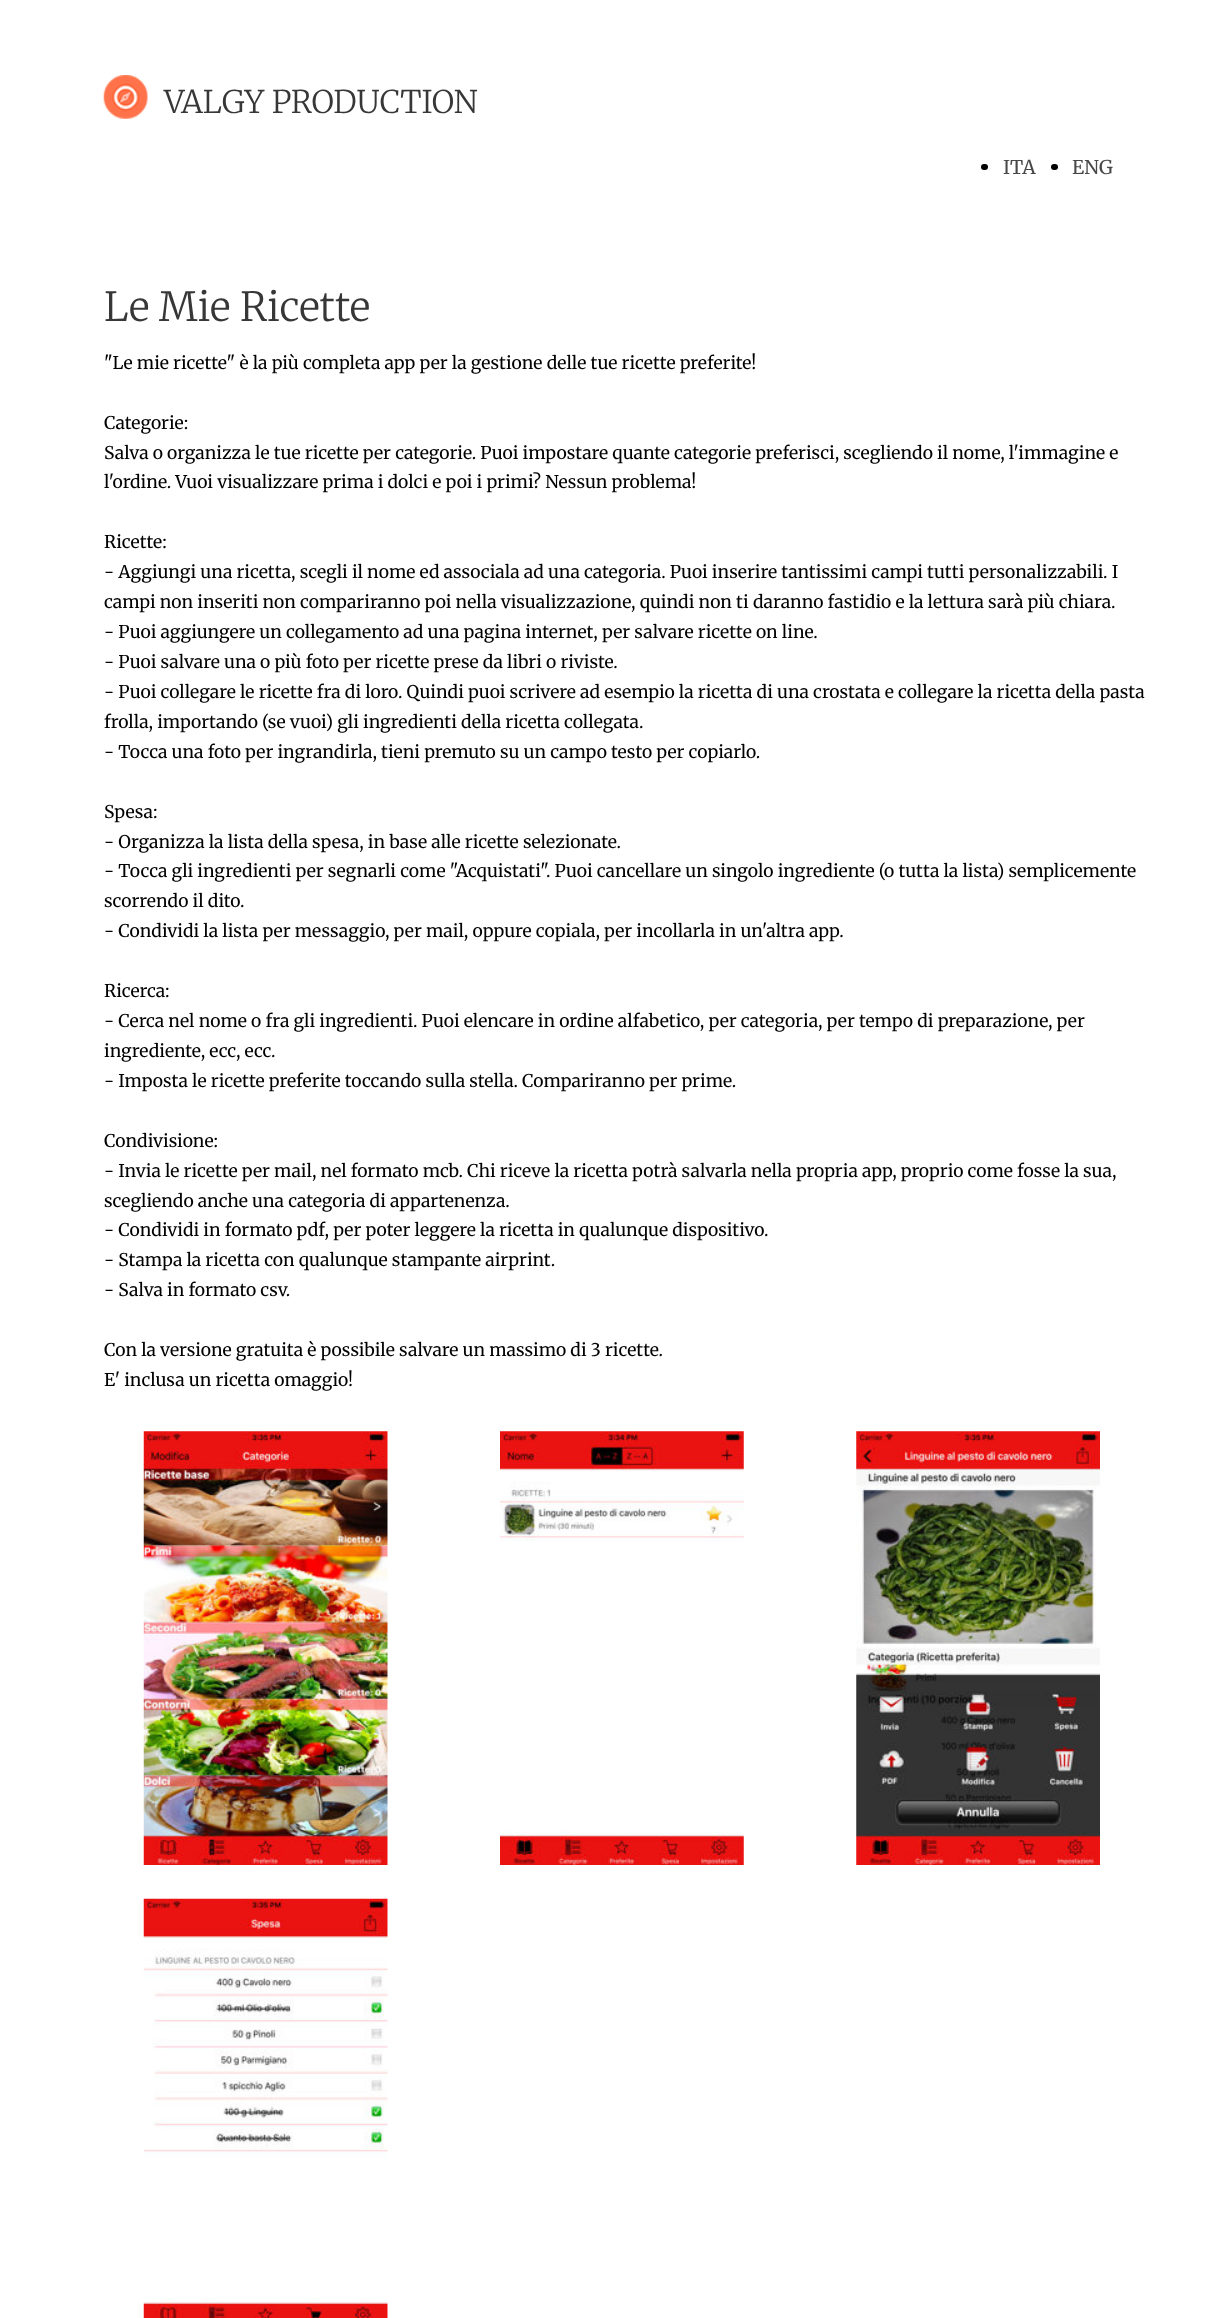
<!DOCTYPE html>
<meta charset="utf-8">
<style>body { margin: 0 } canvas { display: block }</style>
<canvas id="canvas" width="1212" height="2318"></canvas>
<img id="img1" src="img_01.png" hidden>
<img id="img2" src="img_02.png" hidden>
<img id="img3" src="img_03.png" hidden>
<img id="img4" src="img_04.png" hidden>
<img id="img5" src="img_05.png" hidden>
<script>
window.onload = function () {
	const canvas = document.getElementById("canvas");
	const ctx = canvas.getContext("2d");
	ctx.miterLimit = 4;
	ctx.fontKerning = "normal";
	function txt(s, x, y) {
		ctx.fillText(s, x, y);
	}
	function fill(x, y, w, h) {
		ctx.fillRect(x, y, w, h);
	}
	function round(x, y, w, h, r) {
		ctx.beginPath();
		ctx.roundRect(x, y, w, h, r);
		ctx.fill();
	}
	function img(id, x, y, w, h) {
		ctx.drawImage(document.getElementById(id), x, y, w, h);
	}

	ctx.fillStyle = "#FFFFFF";
	fill(0, 0, 1212, 2318);
	img("img1", 103, 75, 45, 44);
	ctx.fillStyle = "#000000";
	round(981, 164, 7, 6, 3);
	round(1051, 164, 7, 6, 3);
	img("img2", 143, 1431, 245, 434);
	img("img3", 500, 1431, 244, 434);
	img("img4", 856, 1431, 244, 434);
	img("img5", 143, 1898, 245, 420);
	ctx.font = "300 31.25px Merriweather";
	ctx.fillStyle = "#373737";
	txt("VALGY PRODUCTION", 164, 113);
	ctx.font = "19px Merriweather";
	ctx.fillStyle = "#484848";
	txt("ITA", 1003, 174);
	txt("ENG", 1072, 174);
	ctx.font = "300 40px Merriweather";
	ctx.fillStyle = "#373737";
	txt("Le Mie Ricette", 104, 321);
	ctx.font = "17.5px Merriweather";
	ctx.fillStyle = "#000000";
	txt("\"Le mie ricette\" è la più completa app per la gestione delle tue ricette preferite!", 104, 369);
	txt("Categorie:", 104, 429);
	txt("Salva o organizza le tue ricette per categorie. Puoi impostare quante categorie preferisci, scegliendo il nome, l'immagine e", 104, 459);
	txt("l'ordine. Vuoi visualizzare prima i dolci e poi i primi? Nessun problema!", 104, 488);
	txt("Ricette:", 104, 548);
	txt("- Aggiungi una ricetta, scegli il nome ed associala ad una categoria. Puoi inserire tantissimi campi tutti personalizzabili. I", 104, 578);
	txt("campi non inseriti non compariranno poi nella visualizzazione, quindi non ti daranno fastidio e la lettura sarà più chiara.", 104, 608);
	txt("- Puoi aggiungere un collegamento ad una pagina internet, per salvare ricette on line.", 104, 638);
	txt("- Puoi salvare una o più foto per ricette prese da libri o riviste.", 104, 668);
	txt("- Puoi collegare le ricette fra di loro. Quindi puoi scrivere ad esempio la ricetta di una crostata e collegare la ricetta della pasta", 104, 698);
	txt("frolla, importando (se vuoi) gli ingredienti della ricetta collegata.", 104, 728);
	txt("- Tocca una foto per ingrandirla, tieni premuto su un campo testo per copiarlo.", 104, 758);
	txt("Spesa:", 104, 818);
	txt("- Organizza la lista della spesa, in base alle ricette selezionate.", 104, 848);
	txt("- Tocca gli ingredienti per segnarli come \"Acquistati\". Puoi cancellare un singolo ingrediente (o tutta la lista) semplicemente", 104, 877);
	txt("scorrendo il dito.", 104, 907);
	txt("- Condividi la lista per messaggio, per mail, oppure copiala, per incollarla in un'altra app.", 104, 937);
	txt("Ricerca:", 104, 997);
	txt("- Cerca nel nome o fra gli ingredienti. Puoi elencare in ordine alfabetico, per categoria, per tempo di preparazione, per", 104, 1027);
	txt("ingrediente, ecc, ecc.", 104, 1057);
	txt("- Imposta le ricette preferite toccando sulla stella. Compariranno per prime.", 104, 1087);
	txt("Condivisione:", 104, 1147);
	txt("- Invia le ricette per mail, nel formato mcb. Chi riceve la ricetta potrà salvarla nella propria app, proprio come fosse la sua,", 104, 1177);
	txt("scegliendo anche una categoria di appartenenza.", 104, 1207);
	txt("- Condividi in formato pdf, per poter leggere la ricetta in qualunque dispositivo.", 104, 1236);
	txt("- Stampa la ricetta con qualunque stampante airprint.", 104, 1266);
	txt("- Salva in formato csv.", 104, 1296);
	txt("Con la versione gratuita è possibile salvare un massimo di 3 ricette.", 104, 1356);
	txt("E' inclusa un ricetta omaggio!", 104, 1386);
};
</script>
